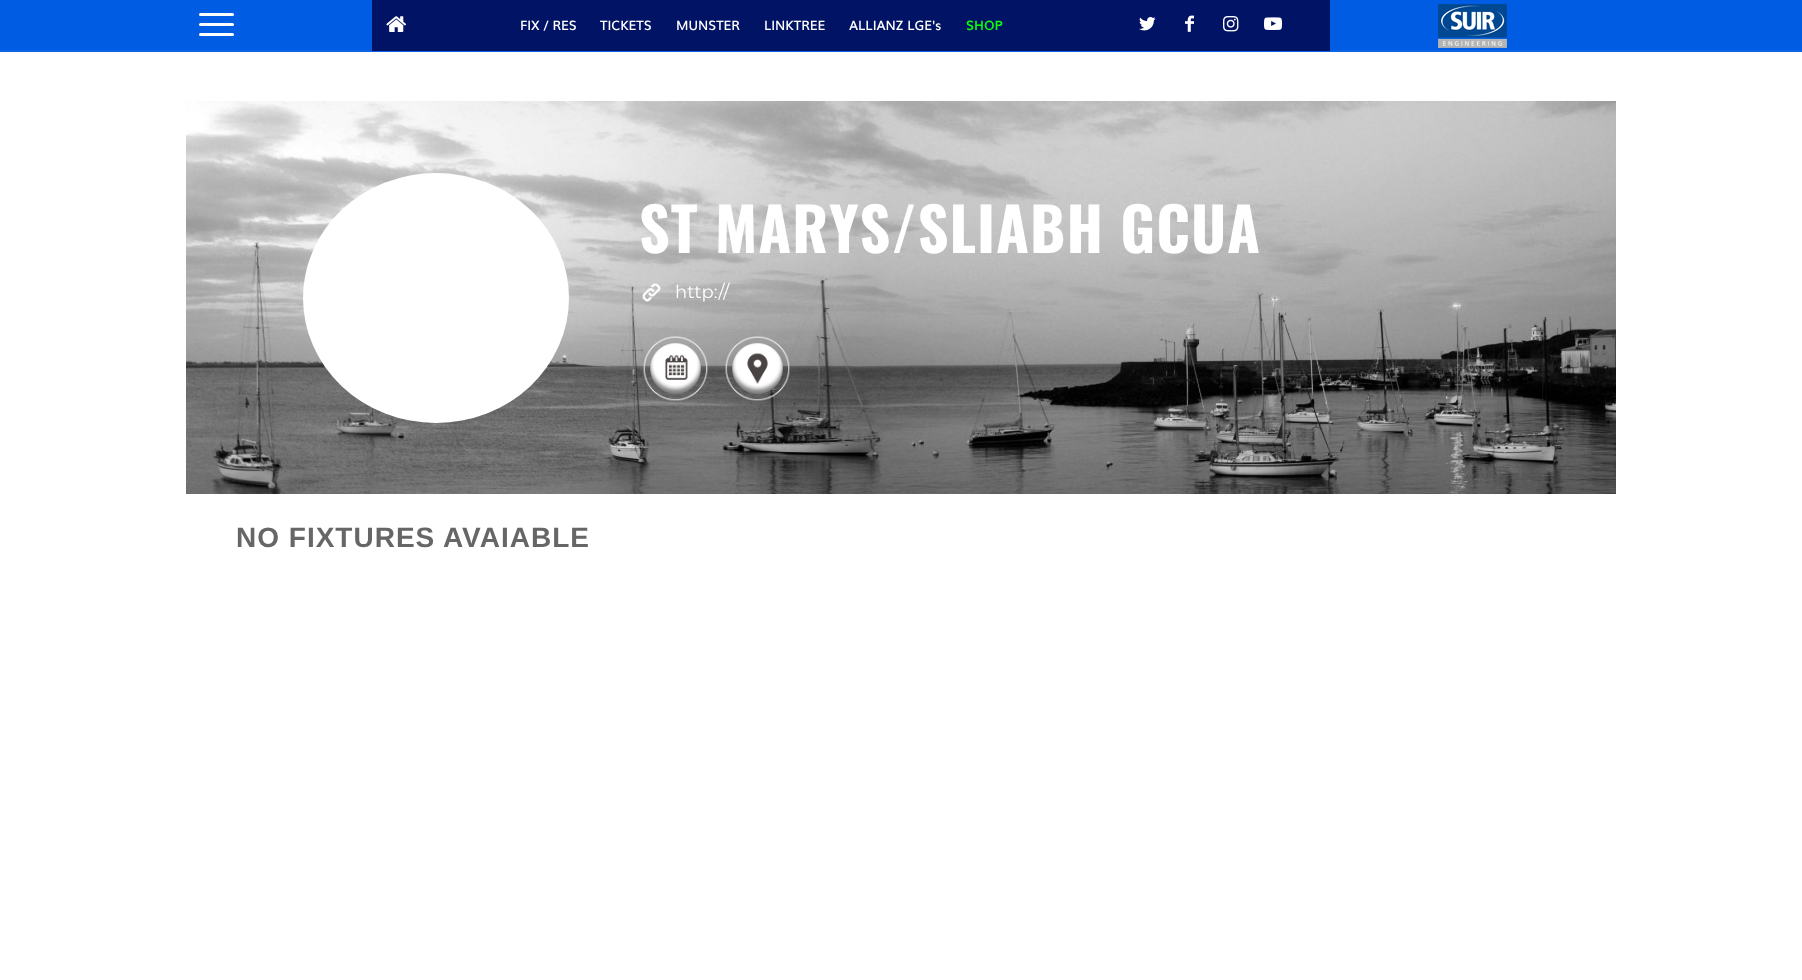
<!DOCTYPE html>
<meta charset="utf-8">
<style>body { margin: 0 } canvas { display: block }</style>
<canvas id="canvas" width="1802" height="980"></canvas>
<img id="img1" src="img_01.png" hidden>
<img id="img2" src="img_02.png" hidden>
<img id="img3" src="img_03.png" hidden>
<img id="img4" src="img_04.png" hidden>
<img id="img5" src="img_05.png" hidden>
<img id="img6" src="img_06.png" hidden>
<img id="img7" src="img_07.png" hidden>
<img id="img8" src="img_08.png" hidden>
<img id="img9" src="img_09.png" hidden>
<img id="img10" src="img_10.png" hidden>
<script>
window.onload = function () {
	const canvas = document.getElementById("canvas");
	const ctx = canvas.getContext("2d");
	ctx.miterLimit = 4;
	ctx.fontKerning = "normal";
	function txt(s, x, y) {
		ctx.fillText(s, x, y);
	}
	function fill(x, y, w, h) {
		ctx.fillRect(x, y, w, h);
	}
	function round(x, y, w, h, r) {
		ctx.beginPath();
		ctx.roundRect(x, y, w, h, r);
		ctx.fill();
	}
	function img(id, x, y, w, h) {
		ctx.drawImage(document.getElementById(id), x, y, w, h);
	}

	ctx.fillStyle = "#015CE4";
	fill(0, 0, 1802, 980);
	ctx.fillStyle = "#FFFFFF";
	round(199, 23, 35, 3, 1.5);
	round(199, 13, 35, 3, 1.5);
	round(199, 33, 35, 3, 1.5);
	ctx.fillStyle = "#0C63E4";
	fill(0, 50, 1802, 1);
	ctx.fillStyle = "#011365";
	fill(372, 0, 958, 51);
	img("img1", 386, 16, 21, 16);
	img("img2", 1139, 17, 17, 14);
	img("img3", 1185, 15, 9, 17);
	img("img4", 1223, 16, 16, 16);
	img("img5", 1264, 17, 18, 13);
	img("img6", 1438, 4, 69, 44);
	ctx.fillStyle = "#FFFFFF";
	fill(0, 52, 1802, 928);
	ctx.fillStyle = "#0E64E5";
	fill(0, 51, 1802, 1);
	img("img7", 186, 101, 1430, 393);
	ctx.fillStyle = "#FFFFFF";
	ctx.beginPath();
	ctx.ellipse(436, 298, 133, 125, 0, 0, Math.PI * 2);
	ctx.fill();
	img("img8", 642, 283, 19, 19);
	img("img9", 643, 336, 65, 65);
	img("img10", 725, 336, 65, 65);
	ctx.font = "600 13px Muli";
	txt("FIX / RES", 520, 30);
	txt("TICKETS", 600, 30);
	txt("MUNSTER", 676, 30);
	txt("LINKTREE", 764, 30);
	txt("ALLIANZ LGE's", 849, 30);
	ctx.font = "bold 13px Muli";
	ctx.fillStyle = "#08FF08";
	txt("SHOP", 966, 30);
	ctx.letterSpacing = "1px";
	ctx.font = "bold 60px Oswald";
	ctx.fillStyle = "#FFFFFF";
	txt("ST MARYS/SLIABH GCUA", 639, 253);
	ctx.letterSpacing = "0px";
	ctx.font = "18px Montserrat";
	txt("http://", 675, 298);
	ctx.letterSpacing = "1px";
	ctx.font = "bold 28px Liberation Sans";
	ctx.fillStyle = "#666666";
	txt("NO FIXTURES AVAIABLE", 236, 547);
};
</script>
